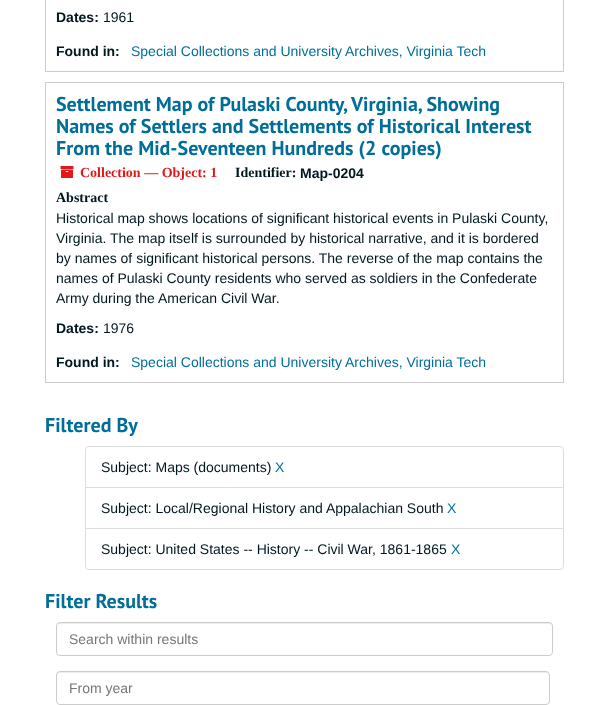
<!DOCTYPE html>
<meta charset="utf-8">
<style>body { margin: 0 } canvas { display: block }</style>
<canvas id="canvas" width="609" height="705"></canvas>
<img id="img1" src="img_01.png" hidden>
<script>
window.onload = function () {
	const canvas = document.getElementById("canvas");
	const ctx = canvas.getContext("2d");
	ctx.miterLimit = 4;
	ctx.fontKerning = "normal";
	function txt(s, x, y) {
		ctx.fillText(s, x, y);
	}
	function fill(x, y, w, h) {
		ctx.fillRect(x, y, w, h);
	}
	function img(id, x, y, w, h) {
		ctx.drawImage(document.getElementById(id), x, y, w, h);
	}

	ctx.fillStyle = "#FFFFFF";
	fill(0, 0, 609, 705);
	ctx.strokeStyle = "#CCCCCC";
	ctx.strokeRect(45.5, -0.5, 518, 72);
	ctx.strokeRect(45.5, 82.5, 518, 300);
	img("img1", 60, 166, 14, 12);
	ctx.beginPath();
	ctx.roundRect(85.5, 446.5, 478, 41, [3.5, 3.5, 0, 0]);
	ctx.strokeStyle = "#DDDDDD";
	ctx.stroke();
	ctx.strokeRect(85.5, 487.5, 478, 41);
	ctx.beginPath();
	ctx.roundRect(85.5, 528.5, 478, 41, [0, 0, 3.5, 3.5]);
	ctx.fill();
	ctx.stroke();
	ctx.fillStyle = "#ECECEC";
	ctx.beginPath();
	ctx.moveTo(60, 624);
	ctx.lineTo(549, 624);
	ctx.bezierCurveTo(551, 624, 552, 625, 552, 627);
	ctx.bezierCurveTo(552, 625, 551, 623, 549, 623);
	ctx.lineTo(60, 623);
	ctx.bezierCurveTo(58, 623, 57, 625, 57, 627);
	ctx.bezierCurveTo(57, 625, 58, 624, 60, 624);
	ctx.closePath();
	ctx.fill();
	ctx.beginPath();
	ctx.roundRect(56.5, 622.5, 496, 33, 3.5);
	ctx.strokeStyle = "#CCCCCC";
	ctx.stroke();
	ctx.beginPath();
	ctx.moveTo(60, 673);
	ctx.lineTo(546, 673);
	ctx.bezierCurveTo(548, 673, 549, 674, 549, 676);
	ctx.lineTo(549, 675);
	ctx.bezierCurveTo(549, 673, 548, 672, 546, 672);
	ctx.lineTo(60, 672);
	ctx.bezierCurveTo(58, 672, 57, 673, 57, 675);
	ctx.lineTo(57, 676);
	ctx.bezierCurveTo(57, 674, 58, 673, 60, 673);
	ctx.closePath();
	ctx.fill();
	ctx.beginPath();
	ctx.roundRect(56.5, 671.5, 493, 33, 3.5);
	ctx.stroke();
	ctx.font = "bold 14px Liberation Sans";
	ctx.fillStyle = "#00171F";
	txt("Dates:", 56, 22);
	ctx.font = "14px Liberation Sans";
	txt("1961", 103, 22);
	ctx.font = "bold 14px Liberation Sans";
	txt("Found in:", 56, 56);
	ctx.font = "14px Liberation Sans";
	ctx.fillStyle = "#006E99";
	txt("Special Collections and University Archives, Virginia Tech", 131, 56);
	ctx.font = "bold 20px PT Sans";
	txt("Settlement Map of Pulaski County, Virginia, Showing", 56, 111);
	txt("Names of Settlers and Settlements of Historical Interest", 56, 133);
	txt("From the Mid-Seventeen Hundreds (2 copies)", 56, 155);
	ctx.font = "bold 14px Liberation Serif";
	ctx.fillStyle = "#E01919";
	txt("Collection — Object: 1", 80, 177);
	ctx.fillStyle = "#00171F";
	txt("Identifier:", 235, 177);
	ctx.font = "bold 14px Liberation Sans";
	txt("Map-0204", 300, 178);
	ctx.font = "bold 14px Liberation Serif";
	txt("Abstract", 56, 202);
	ctx.font = "14px Liberation Sans";
	txt("Historical map shows locations of significant historical events in Pulaski County,", 56, 223);
	txt("Virginia. The map itself is surrounded by historical narrative, and it is bordered", 56, 243);
	txt("by names of significant historical persons. The reverse of the map contains the", 56, 263);
	txt("names of Pulaski County residents who served as soldiers in the Confederate", 56, 283);
	txt("Army during the American Civil War.", 56, 303);
	ctx.font = "bold 14px Liberation Sans";
	txt("Dates:", 56, 333);
	ctx.font = "14px Liberation Sans";
	txt("1976", 103, 333);
	ctx.font = "bold 14px Liberation Sans";
	txt("Found in:", 56, 367);
	ctx.font = "14px Liberation Sans";
	ctx.fillStyle = "#006E99";
	txt("Special Collections and University Archives, Virginia Tech", 131, 367);
	ctx.font = "bold 20px PT Sans";
	txt("Filtered By", 45, 432);
	ctx.font = "14px Liberation Sans";
	ctx.fillStyle = "#00171F";
	txt("Subject: Maps (documents)", 101, 472);
	ctx.fillStyle = "#006E99";
	txt("X", 275, 472);
	ctx.fillStyle = "#00171F";
	txt("Subject: Local/Regional History and Appalachian South", 101, 513);
	ctx.fillStyle = "#006E99";
	txt("X", 447, 513);
	ctx.fillStyle = "#00171F";
	txt("Subject: United States -- History -- Civil War, 1861-1865", 101, 554);
	ctx.fillStyle = "#006E99";
	txt("X", 451, 554);
	ctx.font = "bold 20px PT Sans";
	txt("Filter Results", 45, 608);
	ctx.font = "14px Liberation Sans";
	ctx.fillStyle = "#767676";
	txt("Search within results", 69, 644);
	txt("From year", 69, 693);
};
</script>
